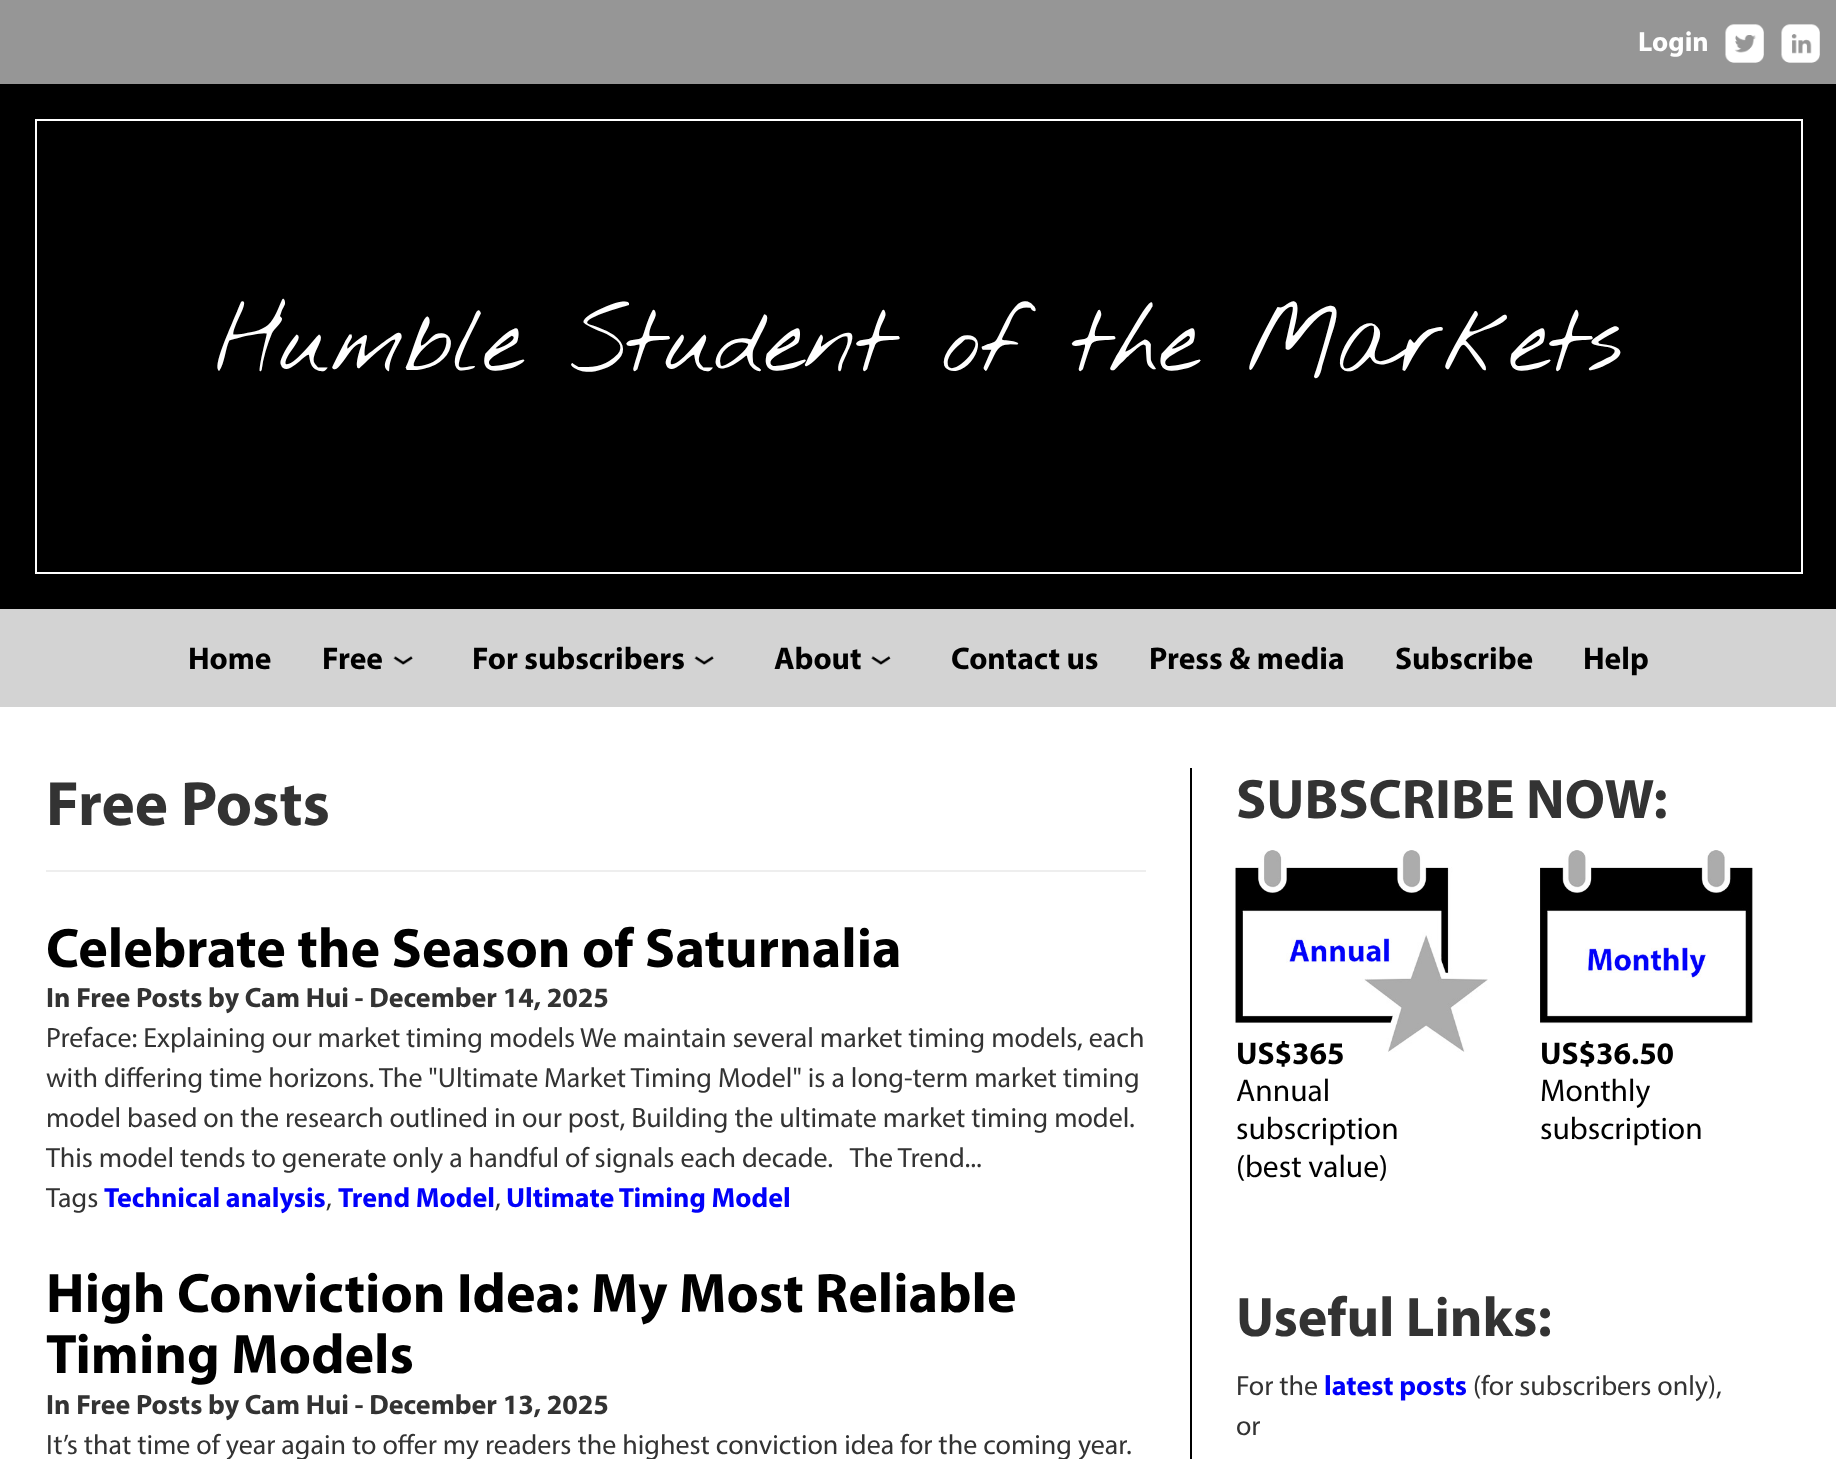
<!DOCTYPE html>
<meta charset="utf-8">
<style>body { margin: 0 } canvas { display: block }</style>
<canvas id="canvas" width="1836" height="1459"></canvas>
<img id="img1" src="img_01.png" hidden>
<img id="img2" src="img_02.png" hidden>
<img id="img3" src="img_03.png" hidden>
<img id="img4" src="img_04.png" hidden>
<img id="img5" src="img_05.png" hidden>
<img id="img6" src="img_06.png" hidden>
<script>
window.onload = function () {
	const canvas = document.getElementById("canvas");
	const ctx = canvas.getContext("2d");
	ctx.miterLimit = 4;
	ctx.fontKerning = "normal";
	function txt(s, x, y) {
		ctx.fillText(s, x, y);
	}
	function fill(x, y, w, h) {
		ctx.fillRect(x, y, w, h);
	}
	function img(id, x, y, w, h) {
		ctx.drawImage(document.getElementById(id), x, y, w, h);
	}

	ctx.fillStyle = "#FFFFFF";
	fill(0, 0, 1836, 1459);
	ctx.fillStyle = "#969696";
	fill(0, 0, 1836, 84);
	img("img1", 1725, 24, 39, 39);
	img("img2", 1781, 24, 39, 39);
	ctx.fillStyle = "#000000";
	fill(0, 84, 1836, 525);
	ctx.strokeStyle = "#FFFFFF";
	ctx.lineWidth = 2;
	ctx.strokeRect(36, 120, 1766, 453);
	ctx.fillStyle = "#D3D3D3";
	fill(0, 609, 1836, 98);
	img("img3", 393, 656, 20, 9);
	img("img3", 694, 656, 20, 9);
	img("img4", 871, 656, 20, 9);
	ctx.fillStyle = "#000000";
	fill(1190, 768, 2, 691);
	ctx.fillStyle = "#EEEEEE";
	fill(46, 870, 1100, 2);
	img("img5", 1235, 850, 253, 202);
	img("img6", 1540, 850, 213, 174);
	ctx.font = "bold 28px Myriad";
	ctx.fillStyle = "#FFFFFF";
	txt("Login", 1638, 51);
	ctx.font = "100 73.5px Nothing You Could Do";
	txt("Humble Student of the Markets", 215, 371);
	ctx.font = "bold 31.5px Myriad";
	ctx.fillStyle = "#000000";
	txt("Home", 188, 669);
	txt("Free", 322, 669);
	txt("For subscribers", 472, 669);
	txt("About", 774, 669);
	txt("Contact us", 951, 669);
	txt("Press & media", 1149, 669);
	txt("Subscribe", 1395, 669);
	txt("Help", 1583, 669);
	ctx.font = "bold 63px Myriad";
	ctx.fillStyle = "#333333";
	txt("Free Posts", 46, 825);
	ctx.font = "bold 56px Myriad";
	ctx.fillStyle = "#000000";
	txt("Celebrate the Season of Saturnalia", 46, 967);
	ctx.font = "bold 28px Myriad";
	ctx.fillStyle = "#333333";
	txt("In Free Posts by Cam Hui - December 14, 2025", 46, 1007);
	ctx.font = "28px Myriad";
	txt("Preface: Explaining our market timing models We maintain several market timing models, each", 46, 1047);
	txt("with differing time horizons. The \"Ultimate Market Timing Model\" is a long-term market timing", 46, 1087);
	txt("model based on the research outlined in our post, Building the ultimate market timing model.", 46, 1127);
	txt("This model tends to generate only a handful of signals each decade.   The Trend...", 46, 1167);
	txt("Tags", 46, 1207);
	ctx.font = "bold 28px Myriad";
	ctx.fillStyle = "#0101FA";
	txt("Technical analysis", 104, 1207);
	ctx.font = "28px Myriad";
	ctx.fillStyle = "#333333";
	txt(",", 326, 1207);
	ctx.font = "bold 28px Myriad";
	ctx.fillStyle = "#0101FA";
	txt("Trend Model", 338, 1207);
	ctx.font = "28px Myriad";
	ctx.fillStyle = "#333333";
	txt(",", 495, 1207);
	ctx.font = "bold 28px Myriad";
	ctx.fillStyle = "#0101FA";
	txt("Ultimate Timing Model", 506, 1207);
	ctx.font = "bold 56px Myriad";
	ctx.fillStyle = "#000000";
	txt("High Conviction Idea: My Most Reliable", 46, 1312);
	txt("Timing Models", 46, 1373);
	ctx.font = "bold 28px Myriad";
	ctx.fillStyle = "#333333";
	txt("In Free Posts by Cam Hui - December 13, 2025", 46, 1414);
	ctx.font = "28px Myriad";
	txt("It’s that time of year again to offer my readers the highest conviction idea for the coming year.", 46, 1454);
	ctx.font = "bold 56px Myriad";
	txt("SUBSCRIBE NOW:", 1236, 818);
	ctx.font = "bold 31.5px Myriad";
	ctx.fillStyle = "#000000";
	txt("US$365", 1236, 1064);
	ctx.font = "31.5px Myriad";
	txt("Annual", 1236, 1101);
	txt("subscription", 1236, 1139);
	txt("(best value)", 1236, 1177);
	ctx.font = "bold 31.5px Myriad";
	txt("US$36.50", 1540, 1064);
	ctx.font = "31.5px Myriad";
	txt("Monthly", 1540, 1101);
	txt("subscription", 1540, 1139);
	ctx.font = "bold 56px Myriad";
	ctx.fillStyle = "#333333";
	txt("Useful Links:", 1236, 1336);
	ctx.font = "28px Myriad";
	txt("For the", 1236, 1395);
	ctx.font = "bold 28px Myriad";
	ctx.fillStyle = "#0101FA";
	txt("latest posts", 1324, 1395);
	ctx.font = "28px Myriad";
	ctx.fillStyle = "#333333";
	txt("(for subscribers only),", 1473, 1395);
	txt("or", 1236, 1435);
};
</script>
